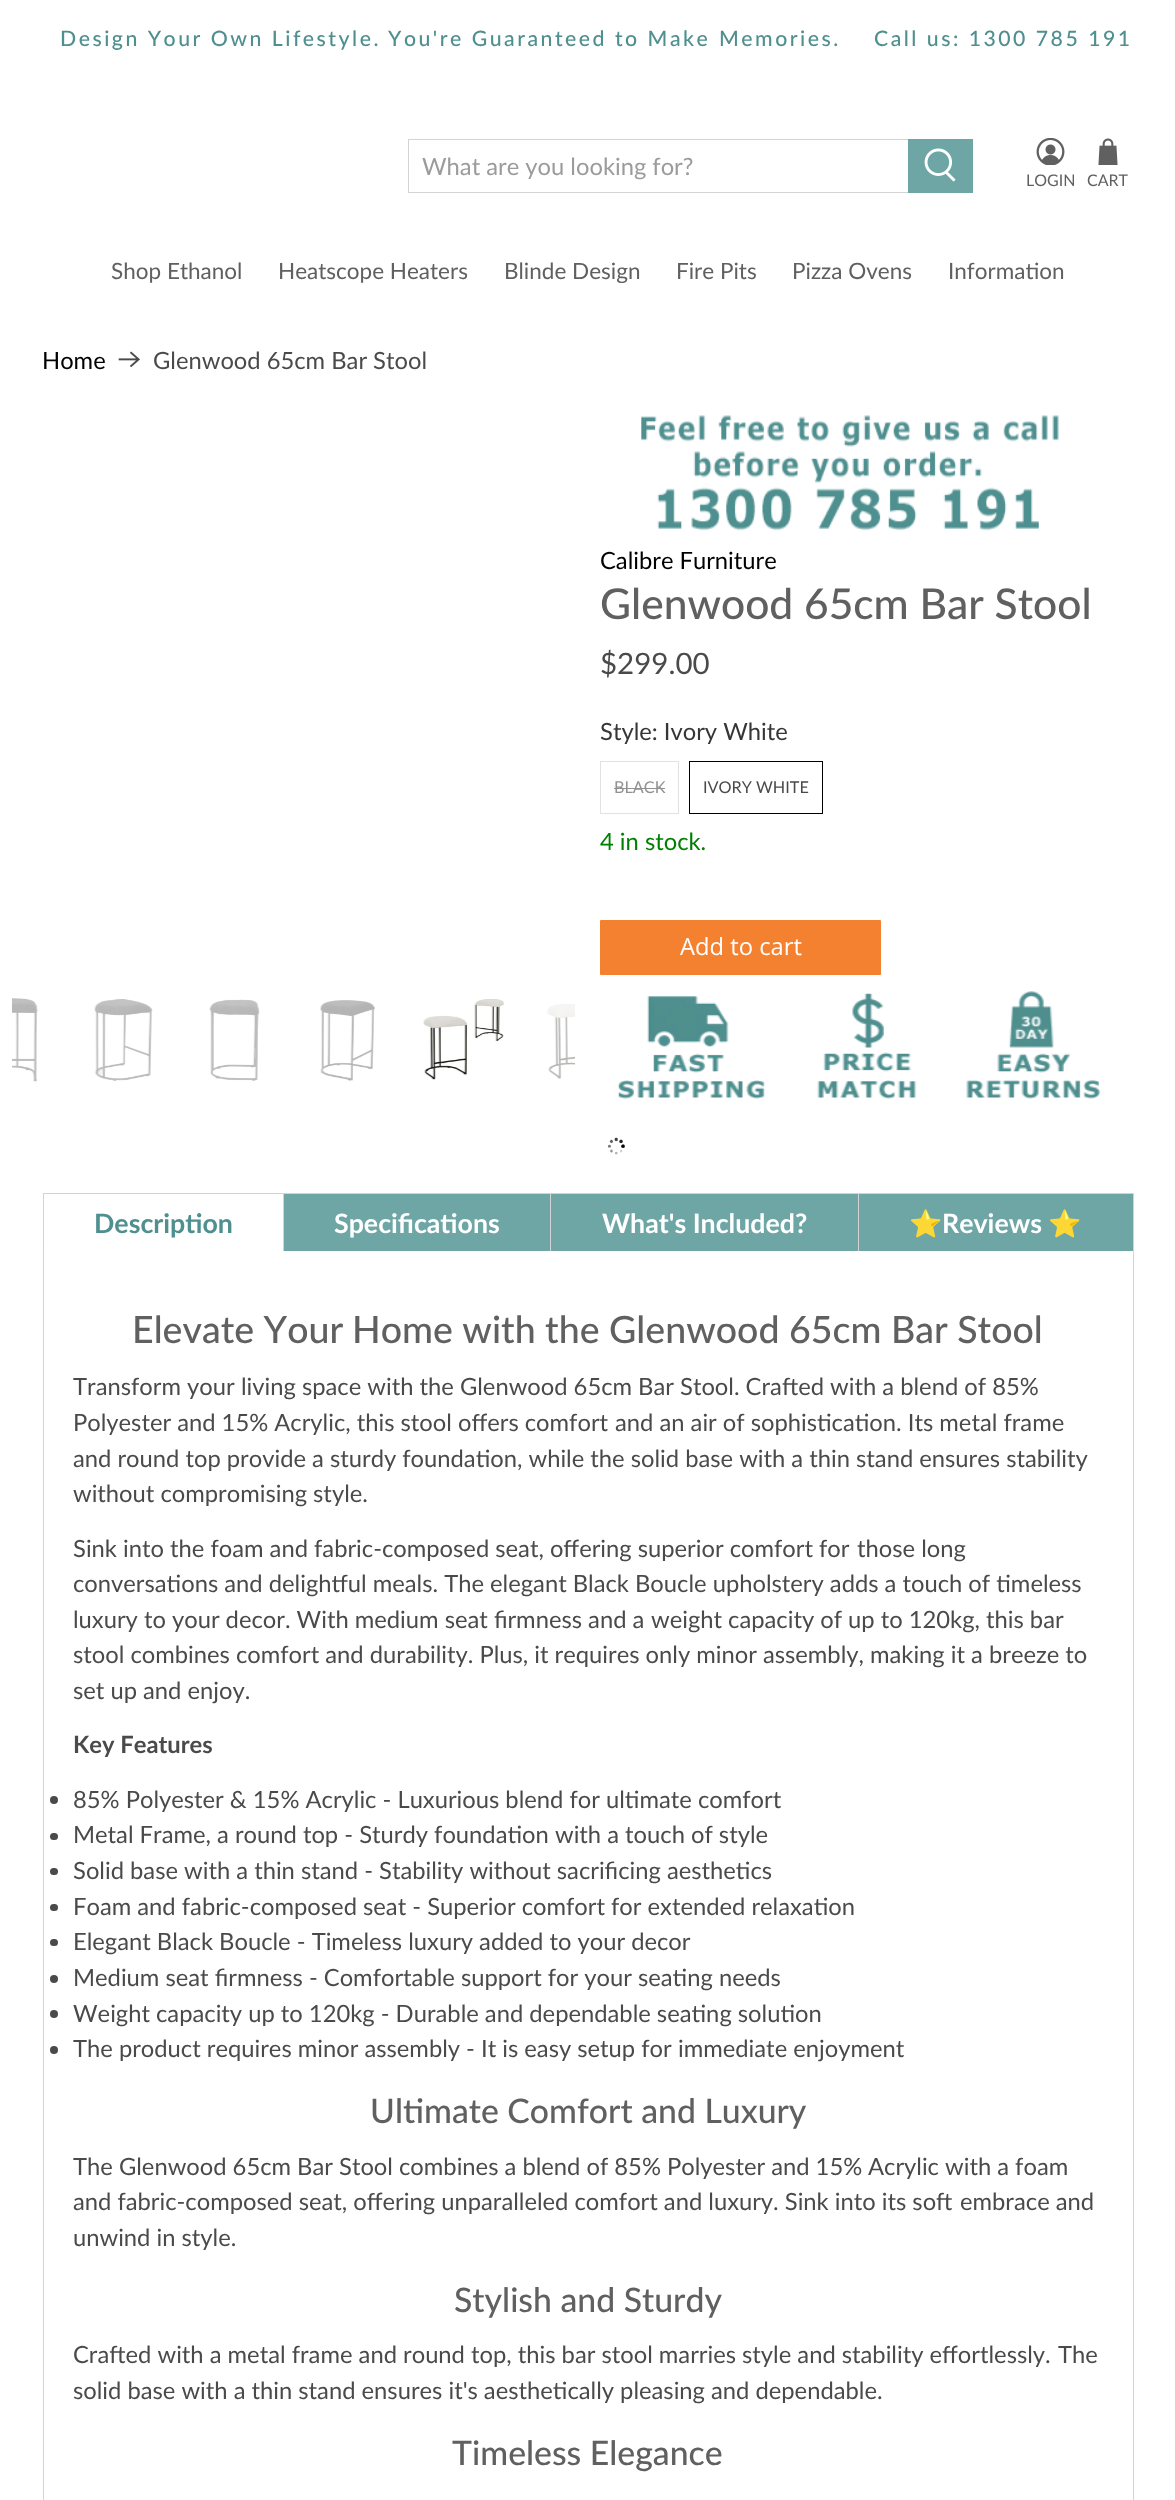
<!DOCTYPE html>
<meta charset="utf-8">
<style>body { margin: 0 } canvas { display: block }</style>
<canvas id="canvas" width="1175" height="2500"></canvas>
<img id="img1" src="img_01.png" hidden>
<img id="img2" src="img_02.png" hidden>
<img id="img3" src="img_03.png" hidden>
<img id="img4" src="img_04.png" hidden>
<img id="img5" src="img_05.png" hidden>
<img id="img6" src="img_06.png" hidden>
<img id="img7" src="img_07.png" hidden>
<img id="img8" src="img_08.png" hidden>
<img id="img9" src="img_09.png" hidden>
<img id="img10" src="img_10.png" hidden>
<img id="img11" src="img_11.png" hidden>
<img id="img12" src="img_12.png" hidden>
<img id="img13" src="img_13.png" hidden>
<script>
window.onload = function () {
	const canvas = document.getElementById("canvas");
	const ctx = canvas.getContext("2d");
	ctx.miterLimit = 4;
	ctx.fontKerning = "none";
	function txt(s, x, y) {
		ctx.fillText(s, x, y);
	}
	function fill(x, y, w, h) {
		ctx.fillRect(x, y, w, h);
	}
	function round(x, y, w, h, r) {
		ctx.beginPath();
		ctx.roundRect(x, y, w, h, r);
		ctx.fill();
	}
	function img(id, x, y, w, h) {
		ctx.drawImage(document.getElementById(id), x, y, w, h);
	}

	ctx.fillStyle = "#FFFFFF";
	fill(0, 0, 1175, 2500);
	ctx.strokeStyle = "#D3D3D3";
	ctx.strokeRect(408.5, 139.5, 500, 53);
	ctx.fillStyle = "#6EA6A6";
	fill(908, 139, 65, 54);
	img("img1", 924, 148, 32, 34);
	img("img2", 1036, 138, 29, 27);
	img("img3", 1098, 138, 20, 27);
	img("img4", 118, 351, 22, 17);
	img("img5", 641, 415, 418, 116);
	ctx.strokeStyle = "#E2E2E2";
	ctx.strokeRect(600.5, 761.5, 78, 52);
	ctx.fillStyle = "#929292";
	fill(614, 788, 51, 1);
	ctx.strokeStyle = "#000000";
	ctx.strokeRect(689.5, 761.5, 133, 52);
	ctx.fillStyle = "#F48130";
	round(600, 920, 281, 55, 1);
	img("img6", 618, 991, 483, 108);
	img("img7", 607, 1137, 18, 18);
	img("img8", 12, 998, 26, 84);
	img("img9", 94, 999, 59, 82);
	img("img10", 209, 999, 51, 82);
	img("img11", 320, 1000, 55, 81);
	img("img12", 423, 999, 81, 81);
	img("img13", 547, 1004, 28, 75);
	ctx.fillStyle = "#D3D3D3";
	fill(43, 1193, 241, 1);
	fill(283, 1193, 1, 58);
	fill(43, 1193, 1, 58);
	ctx.fillStyle = "#6EA6A6";
	fill(284, 1194, 266, 57);
	ctx.fillStyle = "#D3D3D3";
	fill(283, 1193, 268, 1);
	fill(550, 1193, 1, 58);
	ctx.fillStyle = "#6EA6A6";
	fill(551, 1194, 307, 57);
	ctx.fillStyle = "#D3D3D3";
	fill(550, 1193, 309, 1);
	fill(858, 1193, 1, 58);
	ctx.fillStyle = "#6EA6A6";
	fill(859, 1194, 274, 57);
	ctx.fillStyle = "#D3D3D3";
	fill(858, 1193, 276, 1);
	fill(1133, 1193, 1, 58);
	ctx.fillStyle = "#D4D4D4";
	fill(1133, 1251, 1, 1249);
	fill(43, 1251, 1, 1249);
	ctx.fillStyle = "#4A4A4A";
	ctx.beginPath();
	ctx.arc(54, 1800, 4, 0, Math.PI * 2);
	ctx.fill();
	round(50, 1833, 8, 7, 3.5);
	round(50, 1868, 8, 7, 3.5);
	round(50, 1904, 8, 7, 3.5);
	round(50, 1939, 8, 7, 3.5);
	ctx.beginPath();
	ctx.arc(54, 1979, 4, 0, Math.PI * 2);
	ctx.fill();
	ctx.beginPath();
	ctx.arc(54, 2014, 4, 0, Math.PI * 2);
	ctx.fill();
	ctx.beginPath();
	ctx.arc(54, 2050, 4, 0, Math.PI * 2);
	ctx.fill();
	ctx.letterSpacing = "2.5px";
	ctx.font = "500 21.25px Lato";
	ctx.fillStyle = "#4F8F8F";
	txt("Design Your Own Lifestyle.", 60, 46);
	txt("You're Guaranteed to Make", 388, 46);
	txt("Memories.", 719, 46);
	txt("Call us: 1300 785 191", 874, 46);
	ctx.letterSpacing = "0px";
	ctx.font = "23.75px Lato";
	ctx.fillStyle = "#9B9B9B";
	txt("What are you looking for?", 422, 175);
	ctx.font = "16px Lato";
	ctx.fillStyle = "#606060";
	txt("LOGIN", 1026, 186);
	txt("CART", 1087, 186);
	ctx.font = "22.5px Lato";
	txt("Shop Ethanol", 111, 279);
	txt("Heatscope Heaters", 278, 279);
	txt("Blinde Design", 504, 279);
	txt("Fire Pits", 676, 279);
	txt("Pizza Ovens", 792, 279);
	txt("Information", 948, 279);
	ctx.font = "23.75px Lato";
	ctx.fillStyle = "#000000";
	txt("Home", 42, 369);
	ctx.fillStyle = "#4A4A4A";
	txt("Glenwood 65cm Bar Stool", 153, 369);
	ctx.fillStyle = "#000000";
	txt("Calibre Furniture", 600, 569);
	ctx.font = "500 42.5px Lato";
	ctx.fillStyle = "#606060";
	txt("Glenwood 65cm Bar Stool", 600, 619);
	ctx.font = "29.5px Lato";
	ctx.fillStyle = "#4A4A4A";
	txt("$299.00", 600, 674);
	ctx.font = "23.75px Lato";
	ctx.fillStyle = "#363636";
	txt("Style: Ivory White", 600, 740);
	ctx.font = "16.25px Lato";
	ctx.fillStyle = "#929292";
	txt("BLACK", 614, 793);
	ctx.fillStyle = "#4A4A4A";
	txt("IVORY WHITE", 703, 793);
	ctx.font = "23.75px Lato";
	ctx.fillStyle = "#008000";
	txt("4 in stock.", 600, 850);
	ctx.font = "23.75px Open Sans";
	ctx.fillStyle = "#FFFFFF";
	txt("Add to cart", 680, 955);
	ctx.font = "bold 26.75px Lato";
	ctx.fillStyle = "#4F8F8F";
	txt("Description", 94, 1233);
	ctx.fillStyle = "#FFFFFF";
	txt("Specifications", 334, 1233);
	txt("What's Included?", 602, 1233);
	ctx.font = "bold 26.75px Noto Color Emoji";
	txt("⭐", 909, 1233);
	ctx.font = "bold 26.75px Lato";
	txt("Reviews", 942, 1233);
	ctx.font = "bold 26.75px Noto Color Emoji";
	txt("⭐", 1048, 1233);
	ctx.font = "500 37.5px Lato";
	ctx.fillStyle = "#606060";
	txt("Elevate Your", 132, 1343);
	txt("Home with the Glenwood 65cm Bar Stool", 352, 1343);
	ctx.font = "23.75px Lato";
	ctx.fillStyle = "#4A4A4A";
	txt("Transform your", 73, 1395);
	txt("living space with the Glenwood 65cm Bar Stool. Crafted with a blend of 85%", 241, 1395);
	txt("Polyester and 15% Acrylic, this stool offers comfort", 73, 1431);
	txt("and an air of sophistication. Its metal frame", 615, 1431);
	txt("and round top provide a sturdy foundation, while the solid base with a thin stand ensures stability", 73, 1467);
	txt("without compromising style.", 73, 1502);
	txt("Sink into the foam and fabric-composed seat, offering superior comfort for", 73, 1557);
	txt("those long", 857, 1557);
	txt("conversations and delightful meals. The elegant Black Boucle upholstery adds a touch of timeless", 73, 1592);
	txt("luxury to your decor. With medium seat firmness and a", 73, 1628);
	txt("weight capacity of up to 120kg, this bar", 651, 1628);
	txt("stool combines comfort and durability. Plus, it requires only minor assembly,", 73, 1663);
	txt("making it a breeze to", 870, 1663);
	txt("set up and enjoy.", 73, 1699);
	ctx.font = "bold 23.75px Lato";
	txt("Key Features", 73, 1753);
	ctx.font = "23.75px Lato";
	txt("85% Polyester & 15% Acrylic - Luxurious blend for ultimate comfort", 73, 1808);
	txt("Metal Frame, a round top - Sturdy foundation", 73, 1843);
	txt("with a touch of style", 555, 1843);
	txt("Solid base with a thin stand - Stability without sacrificing aesthetics", 73, 1879);
	txt("Foam and fabric-composed seat - Superior comfort for extended relaxation", 73, 1915);
	txt("Elegant Black Boucle - Timeless luxury added to your decor", 73, 1950);
	txt("Medium seat firmness - Comfortable support for your seating needs", 73, 1986);
	txt("Weight capacity up to 120kg - Durable and dependable seating solution", 73, 2022);
	txt("The product requires minor assembly - It is easy setup for", 73, 2057);
	txt("immediate enjoyment", 678, 2057);
	ctx.font = "500 33.75px Lato";
	ctx.fillStyle = "#606060";
	txt("Ultimate Comfort and Luxury", 370, 2123);
	ctx.font = "23.75px Lato";
	ctx.fillStyle = "#4A4A4A";
	txt("The Glenwood 65cm Bar Stool combines a blend of 85% Polyester and 15%", 73, 2175);
	txt("Acrylic with a foam", 868, 2175);
	txt("and fabric-composed seat, offering unparalleled comfort and luxury. Sink into its soft", 73, 2210);
	txt("embrace and", 960, 2210);
	txt("unwind in style.", 73, 2246);
	ctx.font = "500 33.75px Lato";
	ctx.fillStyle = "#606060";
	txt("Stylish and Sturdy", 454, 2312);
	ctx.font = "23.75px Lato";
	ctx.fillStyle = "#4A4A4A";
	txt("Crafted with a metal frame and round top, this bar stool marries style and stability effortlessly.", 73, 2363);
	txt("The", 1058, 2363);
	txt("solid base with a thin stand ensures it's aesthetically pleasing and dependable.", 73, 2399);
	ctx.font = "500 33.75px Lato";
	ctx.fillStyle = "#606060";
	txt("Timeless Elegance", 452, 2465);
};
</script>
